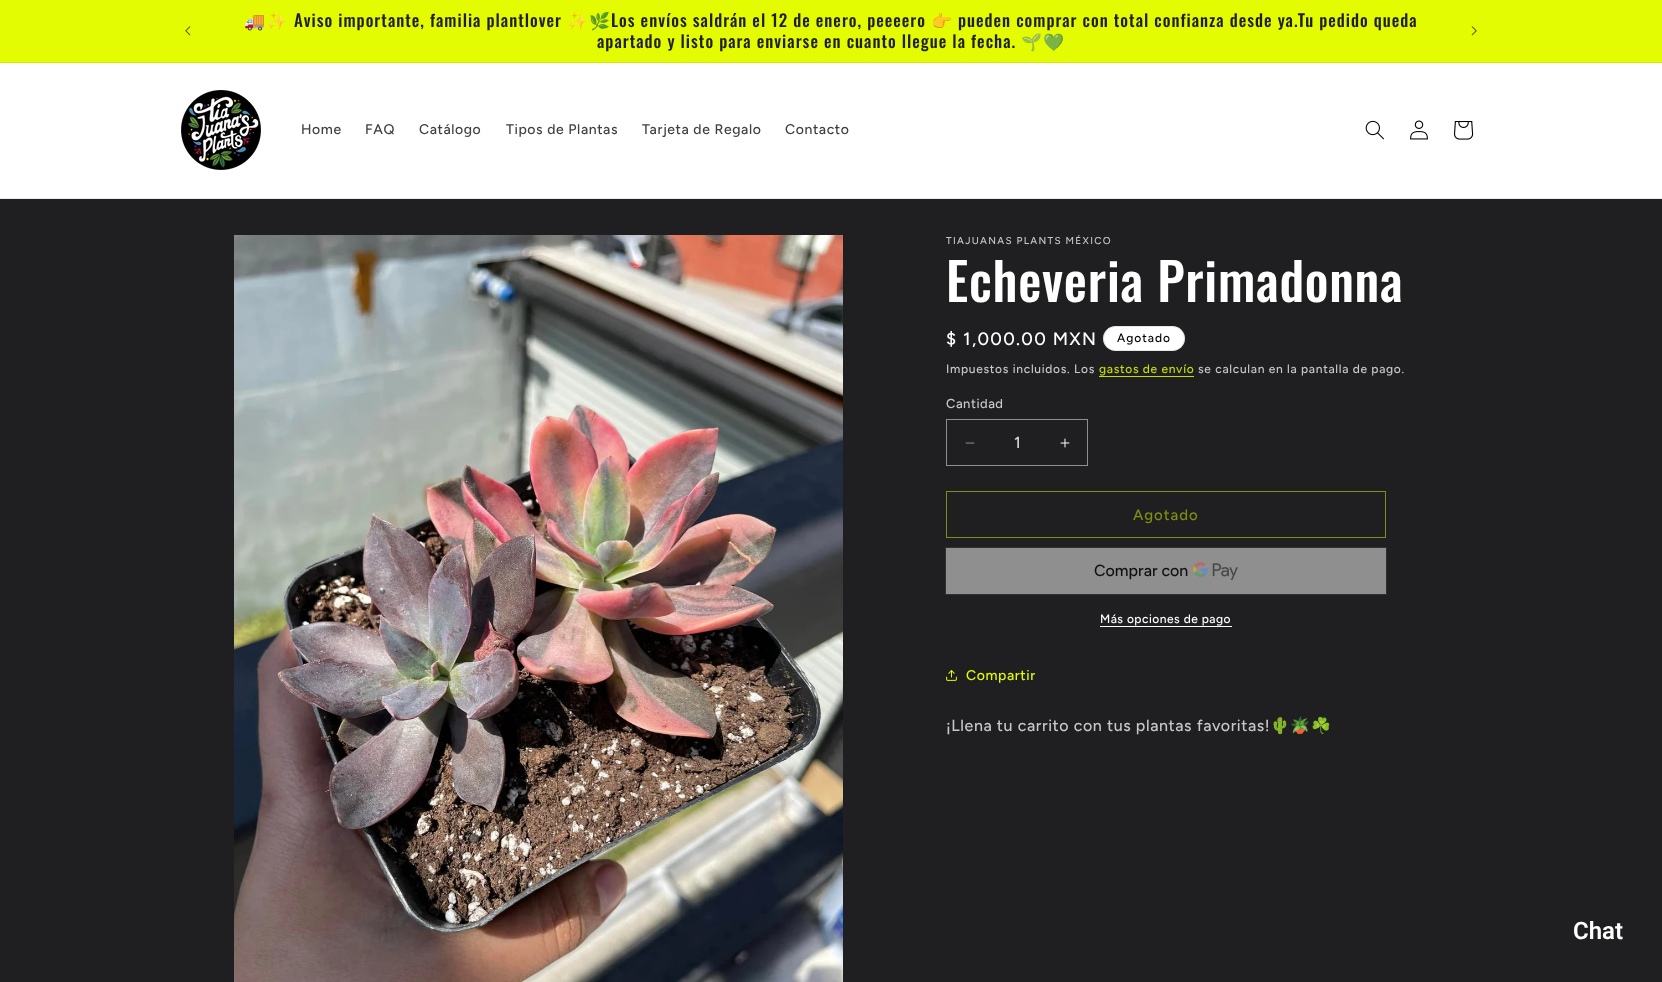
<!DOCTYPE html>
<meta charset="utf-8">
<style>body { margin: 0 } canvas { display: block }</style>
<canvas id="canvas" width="1662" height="982"></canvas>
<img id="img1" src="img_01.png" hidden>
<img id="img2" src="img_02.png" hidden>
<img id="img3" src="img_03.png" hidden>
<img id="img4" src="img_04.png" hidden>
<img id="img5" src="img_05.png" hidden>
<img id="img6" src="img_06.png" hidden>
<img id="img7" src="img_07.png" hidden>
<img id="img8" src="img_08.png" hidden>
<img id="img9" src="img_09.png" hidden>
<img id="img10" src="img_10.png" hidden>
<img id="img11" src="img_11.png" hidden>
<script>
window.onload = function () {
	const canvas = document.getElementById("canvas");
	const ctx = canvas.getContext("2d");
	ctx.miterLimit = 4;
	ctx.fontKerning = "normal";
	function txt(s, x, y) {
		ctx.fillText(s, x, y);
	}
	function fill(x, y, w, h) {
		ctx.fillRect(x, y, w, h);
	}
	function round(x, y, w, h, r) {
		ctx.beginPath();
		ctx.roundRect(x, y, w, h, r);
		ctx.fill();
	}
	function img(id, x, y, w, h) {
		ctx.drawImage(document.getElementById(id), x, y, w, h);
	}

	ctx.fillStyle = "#1F1F21";
	fill(0, 0, 1662, 982);
	ctx.fillStyle = "#E3FC02";
	fill(0, 0, 1662, 62);
	ctx.fillStyle = "#D3EA04";
	fill(0, 62, 1662, 1);
	img("img1", 185, 26, 6, 10);
	img("img2", 1471, 26, 6, 10);
	ctx.fillStyle = "#FFFFFF";
	fill(0, 63, 1662, 135);
	ctx.fillStyle = "#EBEBEB";
	fill(0, 198, 1662, 1);
	img("img3", 181, 90, 80, 80);
	img("img4", 1365, 120, 19, 20);
	img("img5", 1410, 120, 18, 20);
	img("img6", 1454, 121, 20, 19);
	img("img7", 234, 235, 609, 747);
	ctx.fillStyle = "#FFFFFF";
	round(1103, 326, 82, 25, 12.5);
	ctx.beginPath();
	ctx.roundRect(1103.5, 326.5, 81, 24, 12);
	ctx.strokeStyle = "rgba(0, 0, 0, 0.1)";
	ctx.stroke();
	ctx.fillStyle = "#C6DB07";
	fill(1099, 376, 95, 1);
	img("img8", 965, 442, 10, 2);
	img("img9", 1060, 438, 10, 10);
	ctx.strokeStyle = "#8F8F90";
	ctx.strokeRect(946.5, 419.5, 141, 46);
	ctx.strokeStyle = "#818E12";
	ctx.strokeRect(946.5, 491.5, 439, 46);
	ctx.fillStyle = "#8F8F90";
	fill(946, 548, 440, 46);
	ctx.strokeStyle = "#2E3032";
	ctx.strokeRect(945.5, 547.5, 441, 47);
	img("img10", 1193, 562, 45, 18);
	ctx.fillStyle = "#FFFFFF";
	fill(1100, 626, 132, 1);
	img("img11", 946, 670, 11, 11);
	ctx.letterSpacing = "1px";
	ctx.font = "16.9px Noto Color Emoji";
	ctx.fillStyle = "#1F1F21";
	txt("🚚✨", 244, 27);
	ctx.font = "500 16.9px Oswald";
	txt("Aviso importante, familia plantlover", 294, 27);
	ctx.font = "16.9px Noto Color Emoji";
	txt("✨🌿", 567, 27);
	ctx.font = "500 16.9px Oswald";
	txt("Los envíos saldrán el 12 de enero, peeeero", 611, 27);
	ctx.font = "16.9px Noto Color Emoji";
	txt("👉", 931, 27);
	ctx.font = "500 16.9px Oswald";
	txt("pueden comprar con total confianza desde ya.Tu pedido queda", 958, 27);
	txt("apartado y listo para enviarse en cuanto llegue la fecha.", 597, 48);
	ctx.font = "16.9px Noto Color Emoji";
	txt("🌱💚", 1021, 48);
	ctx.letterSpacing = "0.6px";
	ctx.font = "500 14px Figtree";
	ctx.fillStyle = "#404040";
	txt("Home", 301, 134);
	txt("FAQ", 365, 134);
	txt("Catálogo", 419, 134);
	txt("Tipos de Plantas", 506, 134);
	txt("Tarjeta de Regalo", 642, 134);
	txt("Contacto", 785, 134);
	ctx.letterSpacing = "1.3px";
	ctx.font = "500 10px Figtree";
	ctx.fillStyle = "#C7C7C8";
	txt("TIAJUANAS PLANTS MÉXICO", 946, 244);
	ctx.letterSpacing = "0.75px";
	ctx.font = "500 52px Oswald";
	ctx.fillStyle = "#FFFFFF";
	txt("Echeveria Primadonna", 946, 302);
	ctx.letterSpacing = "1.3px";
	ctx.font = "500 18px Figtree";
	txt("$ 1,000.00 MXN", 946, 345);
	ctx.letterSpacing = "1px";
	ctx.font = "500 12px Figtree";
	ctx.fillStyle = "#000000";
	txt("Agotado", 1117, 342);
	ctx.letterSpacing = "0.7px";
	ctx.fillStyle = "#C7C7C8";
	txt("Impuestos incluidos. Los", 946, 373);
	ctx.fillStyle = "#C6DB07";
	txt("gastos de envío", 1099, 373);
	ctx.fillStyle = "#C7C7C8";
	txt("se calculan en la pantalla de pago.", 1198, 373);
	ctx.letterSpacing = "0.5px";
	ctx.font = "500 13px Figtree";
	txt("Cantidad", 946, 408);
	ctx.letterSpacing = "0px";
	ctx.font = "500 16px Figtree";
	ctx.fillStyle = "#DDDDDE";
	txt("1", 1014, 448);
	ctx.letterSpacing = "1px";
	ctx.font = "500 15px Figtree";
	ctx.fillStyle = "#818E12";
	txt("Agotado", 1133, 520);
	ctx.letterSpacing = "0px";
	ctx.font = "500 16px Figtree";
	ctx.fillStyle = "#101011";
	txt("Comprar con", 1094, 576);
	ctx.letterSpacing = "0.5px";
	ctx.font = "500 12px Figtree";
	ctx.fillStyle = "#FFFFFF";
	txt("Más opciones de pago", 1100, 623);
	ctx.letterSpacing = "0.6px";
	ctx.font = "500 14px Figtree";
	ctx.fillStyle = "#E3FC02";
	txt("Compartir", 966, 680);
	ctx.font = "500 16px Figtree";
	ctx.fillStyle = "#C7C7C8";
	txt("¡Llena tu carrito con tus plantas favoritas!", 946, 731);
	ctx.font = "16px Noto Color Emoji";
	txt("🌵🪴☘️", 1270, 731);
	ctx.letterSpacing = "0px";
	ctx.font = "600 24px Roboto";
	ctx.fillStyle = "#FFFFFF";
	txt("Chat", 1573, 939);
};
</script>
